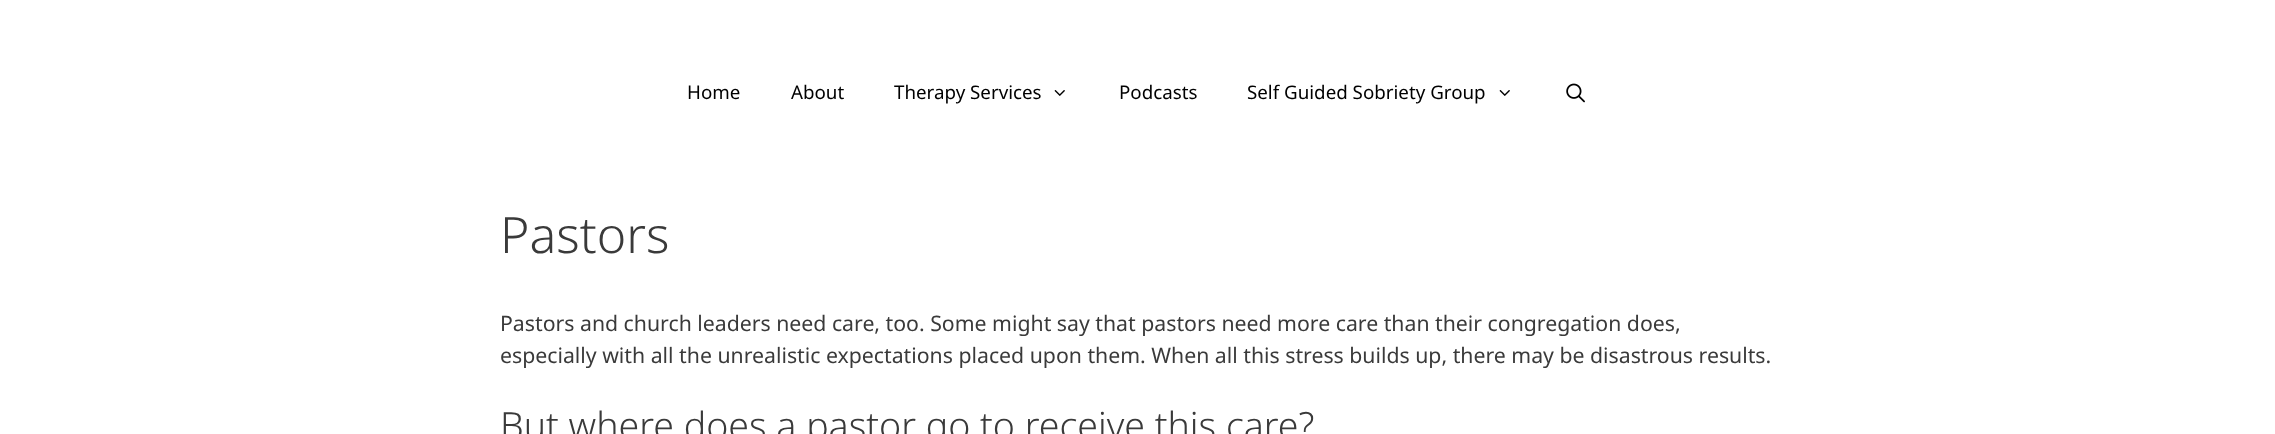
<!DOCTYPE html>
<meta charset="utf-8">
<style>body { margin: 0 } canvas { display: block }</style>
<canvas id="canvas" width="2275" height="434"></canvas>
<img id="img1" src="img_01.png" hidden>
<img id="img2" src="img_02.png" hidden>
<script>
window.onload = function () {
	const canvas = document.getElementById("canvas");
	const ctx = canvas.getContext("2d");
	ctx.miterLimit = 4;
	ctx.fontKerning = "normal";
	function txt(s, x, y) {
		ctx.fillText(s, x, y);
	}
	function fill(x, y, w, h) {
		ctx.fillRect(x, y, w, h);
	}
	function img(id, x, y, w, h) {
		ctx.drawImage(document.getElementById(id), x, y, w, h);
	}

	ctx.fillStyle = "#FFFFFF";
	fill(0, 0, 2275, 434);
	img("img1", 1054, 90, 11, 6);
	img("img1", 1499, 90, 11, 6);
	img("img2", 1566, 83, 19, 20);
	ctx.font = "18.75px Noto Sans";
	ctx.fillStyle = "#000000";
	txt("Home", 687, 99);
	txt("About", 791, 99);
	txt("Therapy Services", 894, 99);
	txt("Podcasts", 1119, 99);
	txt("Self Guided Sobriety Group", 1247, 99);
	ctx.font = "300 50px Noto Sans";
	ctx.fillStyle = "#3A3A3A";
	txt("Pastors", 500, 253);
	ctx.font = "21.25px Noto Sans";
	txt("Pastors and church leaders need care, too. Some might say that pastors need more care than their congregation does,", 500, 331);
	txt("especially with all the unrealistic expectations placed upon them. When all this stress builds up, there may be disastrous results.", 500, 363);
	ctx.font = "300 37.5px Noto Sans";
	txt("But where does a pastor go to receive this care?", 500, 439);
};
</script>
